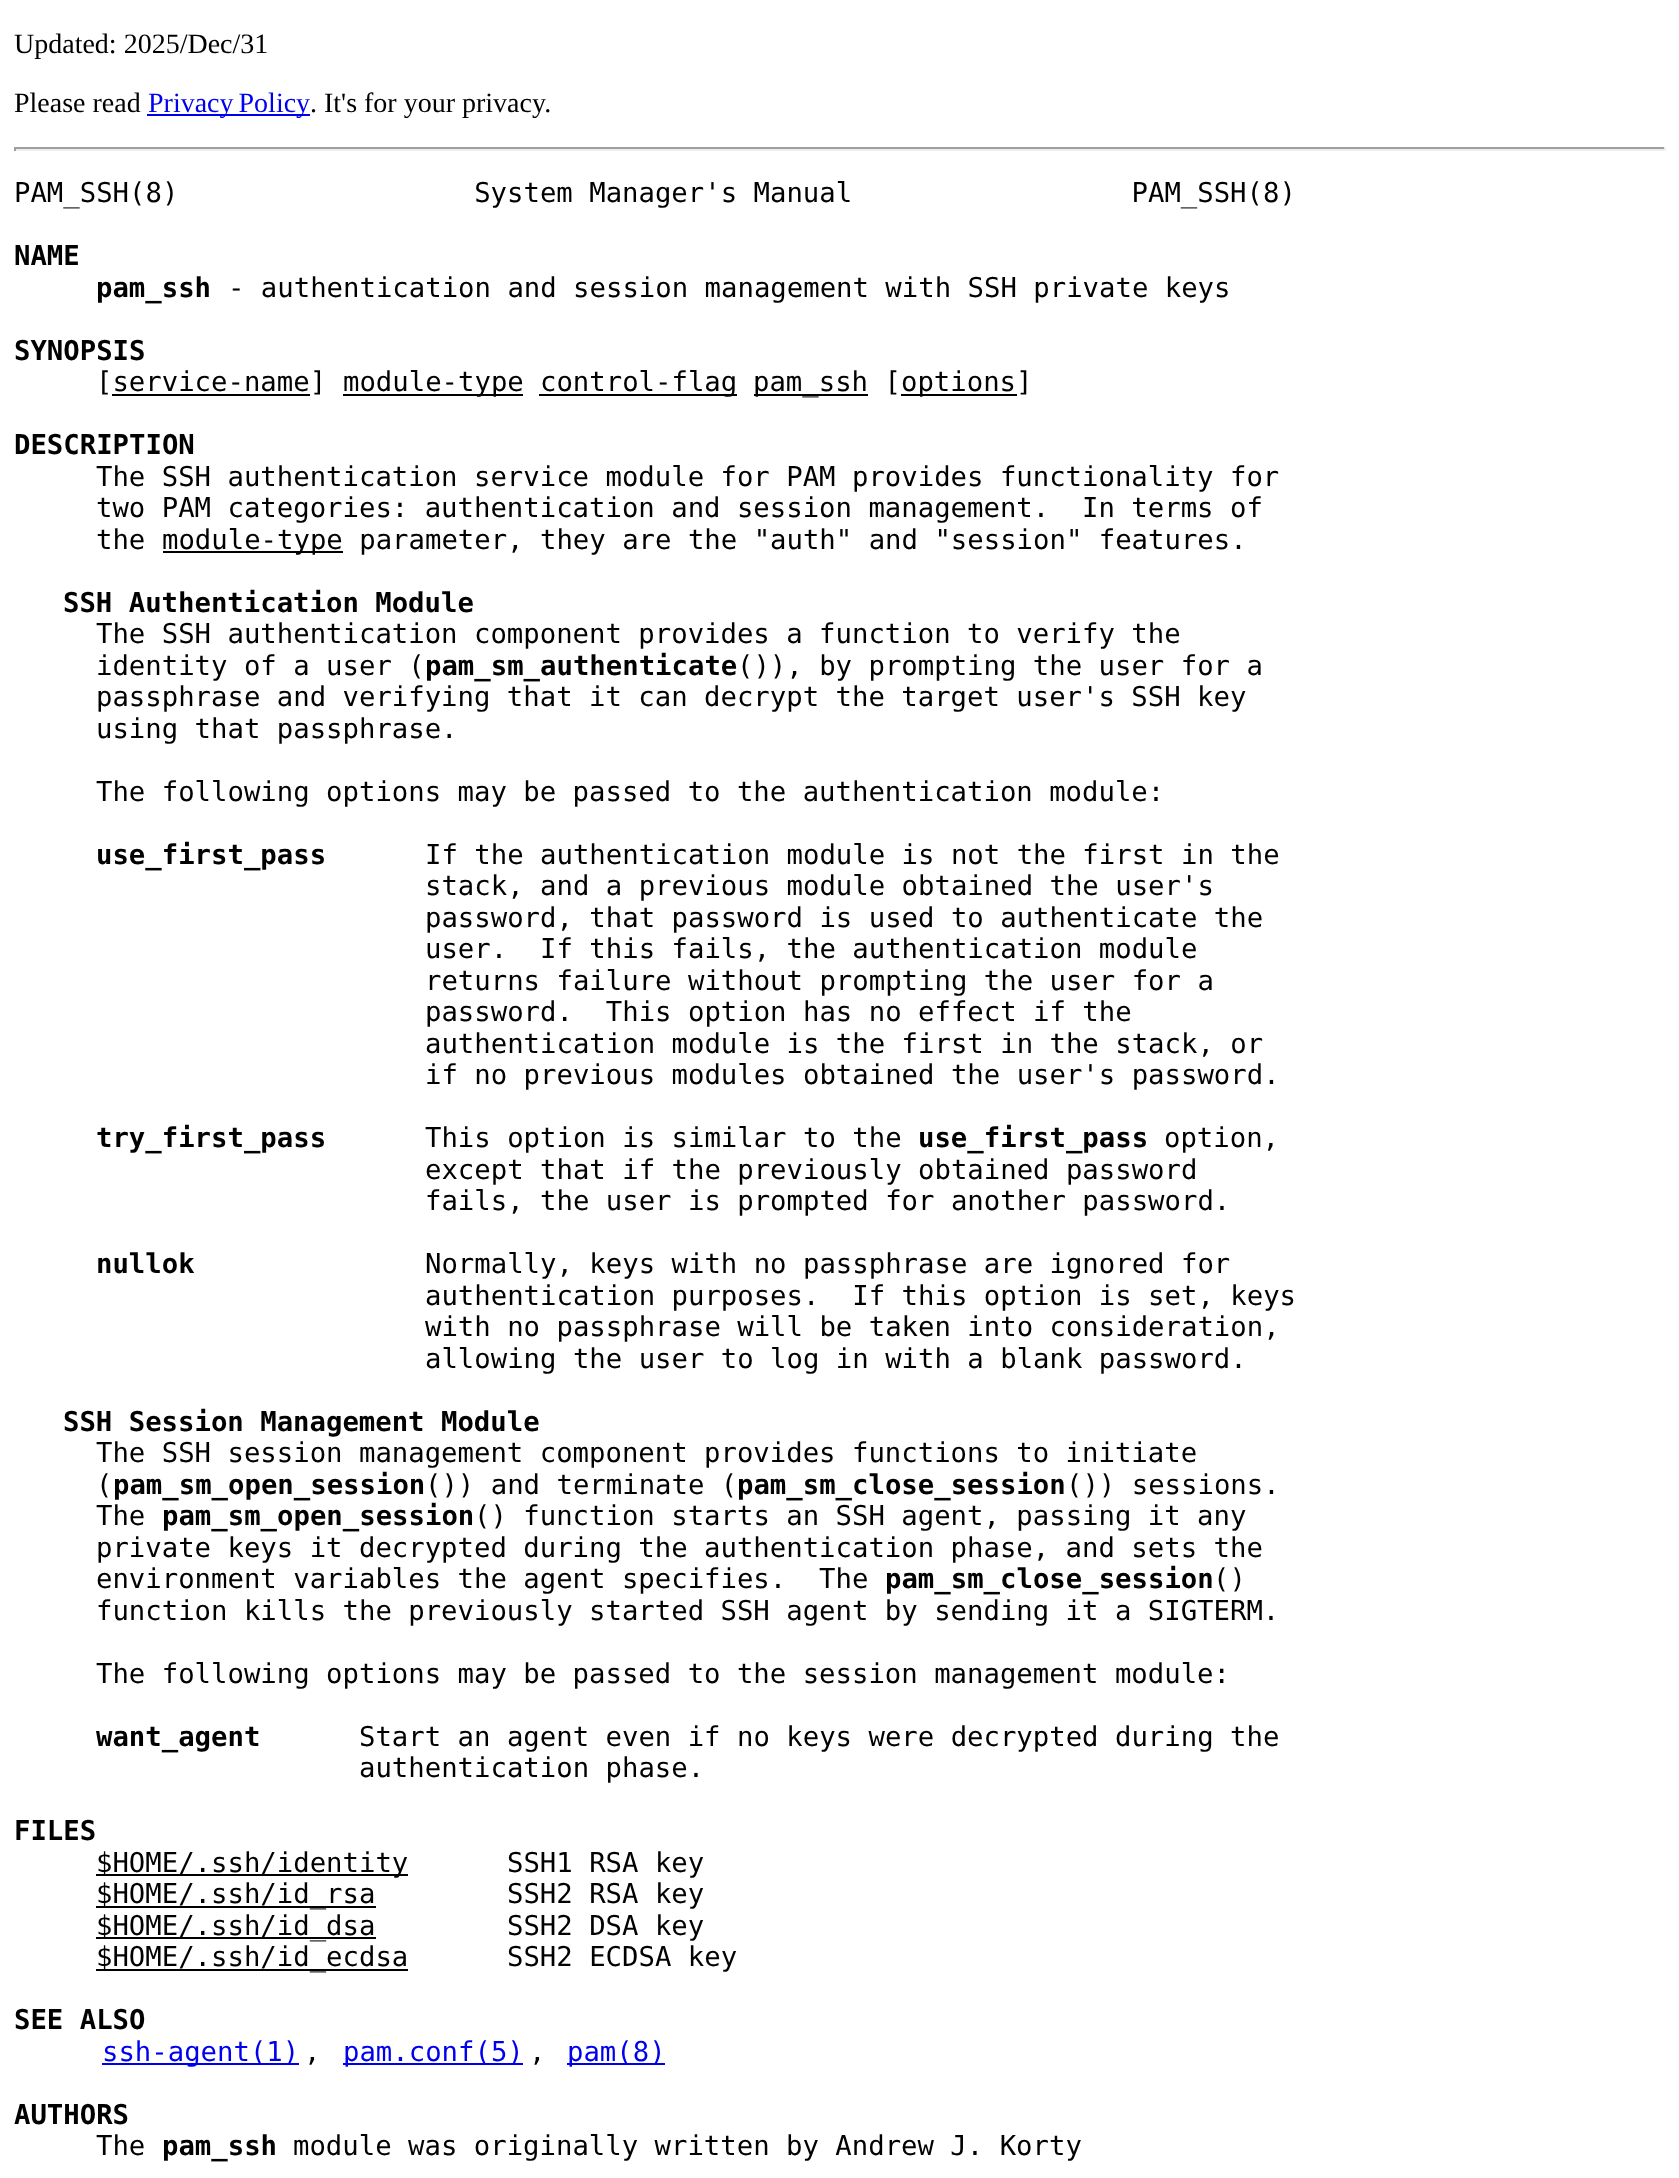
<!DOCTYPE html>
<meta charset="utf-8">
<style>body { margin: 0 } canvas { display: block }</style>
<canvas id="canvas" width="1679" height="2178"></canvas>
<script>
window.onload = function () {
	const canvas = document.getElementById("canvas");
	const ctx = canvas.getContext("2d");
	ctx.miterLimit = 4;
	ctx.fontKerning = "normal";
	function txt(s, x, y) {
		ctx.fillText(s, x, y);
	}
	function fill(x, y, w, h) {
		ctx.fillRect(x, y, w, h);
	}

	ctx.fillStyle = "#FFFFFF";
	fill(0, 0, 1679, 2178);
	ctx.fillStyle = "#0000EE";
	fill(147, 114, 163, 2);
	ctx.fillStyle = "#9F9F9F";
	fill(14, 147, 1652, 2);
	ctx.fillStyle = "#EEEEEE";
	fill(1664, 147, 2, 4);
	fill(14, 149, 1652, 2);
	ctx.fillStyle = "#9F9F9F";
	fill(14, 147, 2, 4);
	ctx.fillStyle = "#000000";
	fill(343, 394, 180, 2);
	fill(539, 394, 198, 2);
	fill(754, 394, 114, 2);
	fill(901, 394, 116, 2);
	fill(112, 394, 198, 2);
	fill(163, 551, 180, 2);
	fill(96, 1874, 312, 2);
	fill(96, 1906, 280, 2);
	fill(96, 1937, 280, 2);
	fill(96, 1969, 312, 2);
	ctx.fillStyle = "#0000EE";
	fill(102, 2063, 197, 2);
	fill(343, 2063, 180, 2);
	fill(567, 2063, 98, 2);
	ctx.font = "28px Liberation Serif";
	ctx.fillStyle = "#000000";
	txt("Updated: 2025/Dec/31", 14, 53);
	txt("Please read", 14, 112);
	ctx.wordSpacing = "-2px";
	ctx.fillStyle = "#0000EE";
	txt("Privacy Policy", 148, 112);
	ctx.wordSpacing = "0px";
	ctx.fillStyle = "#000000";
	txt(". It's for your privacy.", 310, 112);
	ctx.font = "27.3px DejaVu Sans Mono";
	txt("PAM_SSH(8)                  System Manager's Manual                 PAM_SSH(8)", 14, 202);
	ctx.font = "bold 27.3px DejaVu Sans Mono";
	txt("NAME", 14, 265);
	txt("pam_ssh", 96, 297);
	ctx.font = "27.3px DejaVu Sans Mono";
	txt("- authentication and session management with SSH private keys", 228, 297);
	ctx.font = "bold 27.3px DejaVu Sans Mono";
	txt("SYNOPSIS", 14, 360);
	ctx.font = "27.3px DejaVu Sans Mono";
	txt("[service-name]", 96, 391);
	txt("module-type", 343, 391);
	txt("control-flag", 540, 391);
	txt("pam_ssh [", 753, 391);
	txt("options]", 901, 391);
	ctx.font = "bold 27.3px DejaVu Sans Mono";
	txt("DESCRIPTION", 14, 454);
	ctx.font = "27.3px DejaVu Sans Mono";
	txt("The SSH authentication service module for PAM provides functionality for", 96, 486);
	txt("two PAM categories: authentication and session management.  In terms of", 96, 517);
	txt("the", 96, 549);
	txt("module-type parameter, they are the \"auth\" and \"session\" features.", 162, 549);
	ctx.font = "bold 27.3px DejaVu Sans Mono";
	txt("SSH Authentication Module", 63, 612);
	ctx.font = "27.3px DejaVu Sans Mono";
	txt("The SSH authentication component provides a function to verify the", 96, 643);
	txt("identity of a user (", 96, 675);
	ctx.font = "bold 27.3px DejaVu Sans Mono";
	txt("pam_sm_authenticate", 425, 675);
	ctx.font = "27.3px DejaVu Sans Mono";
	txt("()), by prompting the user for a", 737, 675);
	txt("passphrase and verifying that it can decrypt the target user's SSH key", 96, 706);
	txt("using that passphrase.", 96, 738);
	txt("The following options may be passed to the authentication module:", 96, 801);
	ctx.font = "bold 27.3px DejaVu Sans Mono";
	txt("use_first_pass", 96, 864);
	ctx.font = "27.3px DejaVu Sans Mono";
	txt("If the authentication module is not the first in the", 425, 864);
	txt("stack, and a previous module obtained the user's", 425, 895);
	txt("password, that password is used to authenticate the", 425, 927);
	txt("user.  If this fails, the authentication module", 425, 958);
	txt("returns failure without prompting the user for a", 425, 990);
	txt("password.  This option has no effect if the", 425, 1021);
	txt("authentication module is the first in the stack, or", 425, 1053);
	txt("if no previous modules obtained the user's password.", 425, 1084);
	ctx.font = "bold 27.3px DejaVu Sans Mono";
	txt("try_first_pass", 96, 1147);
	ctx.font = "27.3px DejaVu Sans Mono";
	txt("This option is similar to the", 425, 1147);
	ctx.font = "bold 27.3px DejaVu Sans Mono";
	txt("use_first_pass", 918, 1147);
	ctx.font = "27.3px DejaVu Sans Mono";
	txt("option,", 1164, 1147);
	txt("except that if the previously obtained password", 425, 1179);
	txt("fails, the user is prompted for another password.", 425, 1210);
	ctx.font = "bold 27.3px DejaVu Sans Mono";
	txt("nullok", 96, 1273);
	ctx.font = "27.3px DejaVu Sans Mono";
	txt("Normally, keys with no passphrase are ignored for", 425, 1273);
	txt("authentication purposes.  If this option is set, keys", 425, 1305);
	txt("with no passphrase will be taken into consideration,", 425, 1336);
	txt("allowing the user to log in with a blank password.", 425, 1368);
	ctx.font = "bold 27.3px DejaVu Sans Mono";
	txt("SSH Session Management Module", 63, 1431);
	ctx.font = "27.3px DejaVu Sans Mono";
	txt("The SSH session management component provides functions to initiate", 96, 1462);
	txt("(", 96, 1494);
	ctx.font = "bold 27.3px DejaVu Sans Mono";
	txt("pam_sm_open_session", 113, 1494);
	ctx.font = "27.3px DejaVu Sans Mono";
	txt("()) and terminate (", 425, 1494);
	ctx.font = "bold 27.3px DejaVu Sans Mono";
	txt("pam_sm_close_session", 737, 1494);
	ctx.font = "27.3px DejaVu Sans Mono";
	txt("()) sessions.", 1066, 1494);
	txt("The", 96, 1525);
	ctx.font = "bold 27.3px DejaVu Sans Mono";
	txt("pam_sm_open_session", 162, 1525);
	ctx.font = "27.3px DejaVu Sans Mono";
	txt("() function starts an SSH agent, passing it any", 474, 1525);
	txt("private keys it decrypted during the authentication phase, and sets the", 96, 1557);
	txt("environment variables the agent specifies.  The", 96, 1588);
	ctx.font = "bold 27.3px DejaVu Sans Mono";
	txt("pam_sm_close_session", 885, 1588);
	ctx.font = "27.3px DejaVu Sans Mono";
	txt("()", 1213, 1588);
	txt("function kills the previously started SSH agent by sending it a SIGTERM.", 96, 1620);
	txt("The following options may be passed to the session management module:", 96, 1683);
	ctx.font = "bold 27.3px DejaVu Sans Mono";
	txt("want_agent", 96, 1746);
	ctx.font = "27.3px DejaVu Sans Mono";
	txt("Start an agent even if no keys were decrypted during the", 359, 1746);
	txt("authentication phase.", 359, 1777);
	ctx.font = "bold 27.3px DejaVu Sans Mono";
	txt("FILES", 14, 1840);
	ctx.font = "27.3px DejaVu Sans Mono";
	txt("$HOME/.ssh/identity", 96, 1872);
	txt("SSH1 RSA key", 507, 1872);
	txt("$HOME/.ssh/id_rsa", 96, 1903);
	txt("SSH2 RSA key", 507, 1903);
	txt("$HOME/.ssh/id_dsa", 96, 1935);
	txt("SSH2 DSA key", 507, 1935);
	txt("$HOME/.ssh/id_ecdsa", 96, 1966);
	txt("SSH2 ECDSA key", 507, 1966);
	ctx.font = "bold 27.3px DejaVu Sans Mono";
	txt("SEE ALSO", 14, 2029);
	ctx.font = "27.3px DejaVu Sans Mono";
	ctx.fillStyle = "#0000EE";
	txt("ssh-agent(1)", 102, 2061);
	ctx.fillStyle = "#000000";
	txt(",", 304, 2061);
	ctx.fillStyle = "#0000EE";
	txt("pam.conf(5)", 343, 2061);
	ctx.fillStyle = "#000000";
	txt(",", 529, 2061);
	ctx.fillStyle = "#0000EE";
	txt("pam(8)", 567, 2061);
	ctx.font = "bold 27.3px DejaVu Sans Mono";
	ctx.fillStyle = "#000000";
	txt("AUTHORS", 14, 2124);
	ctx.font = "27.3px DejaVu Sans Mono";
	txt("The", 96, 2155);
	ctx.font = "bold 27.3px DejaVu Sans Mono";
	txt("pam_ssh", 162, 2155);
	ctx.font = "27.3px DejaVu Sans Mono";
	txt("module was originally written by Andrew J. Korty", 293, 2155);
};
</script>
